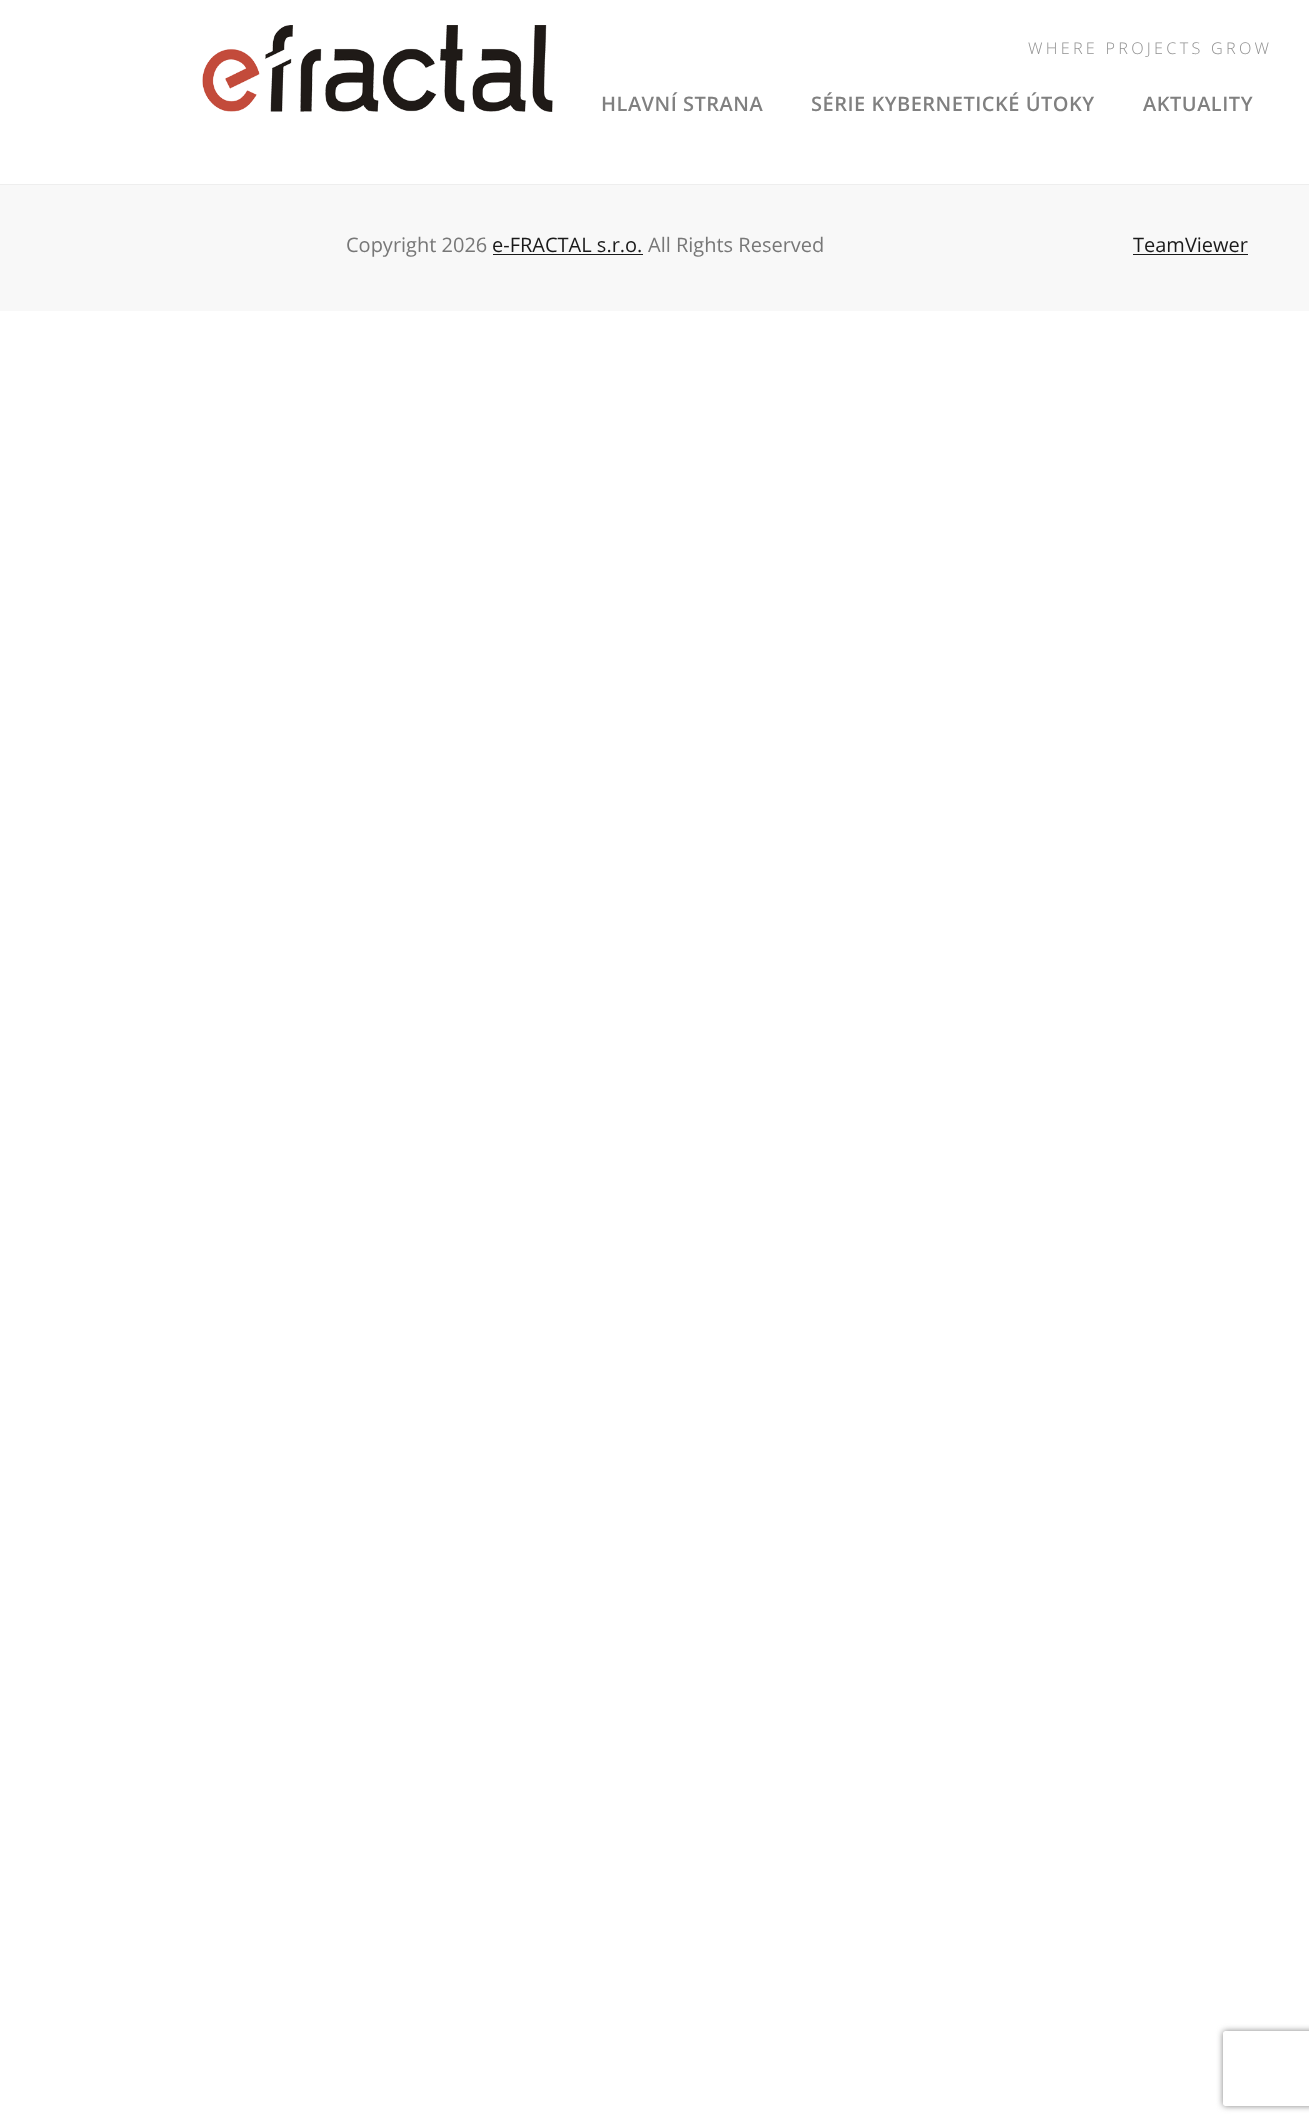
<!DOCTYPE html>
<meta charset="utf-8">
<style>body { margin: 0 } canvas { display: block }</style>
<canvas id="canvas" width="1309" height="2123"></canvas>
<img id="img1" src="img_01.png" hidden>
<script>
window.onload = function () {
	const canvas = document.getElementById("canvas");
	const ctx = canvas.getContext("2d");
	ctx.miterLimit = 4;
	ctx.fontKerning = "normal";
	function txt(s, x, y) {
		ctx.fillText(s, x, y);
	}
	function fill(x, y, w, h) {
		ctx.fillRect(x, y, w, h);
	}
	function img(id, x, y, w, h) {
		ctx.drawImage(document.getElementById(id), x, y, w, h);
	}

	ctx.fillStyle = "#FFFFFF";
	fill(0, 0, 1309, 2123);
	img("img1", 202, 25, 351, 87);
	ctx.fillStyle = "#F8F8F8";
	fill(0, 185, 1309, 126);
	ctx.fillStyle = "#EEEEEE";
	fill(0, 184, 1309, 1);
	ctx.fillStyle = "#1A1A1A";
	fill(493, 254, 150, 1);
	fill(1133, 254, 115, 1);
	ctx.save();
	ctx.beginPath();
	ctx.moveTo(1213, 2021);
	ctx.lineTo(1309, 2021);
	ctx.lineTo(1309, 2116);
	ctx.lineTo(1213, 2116);
	ctx.closePath();
	ctx.moveTo(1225.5, 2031);
	ctx.lineTo(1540.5, 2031);
	ctx.bezierCurveTo(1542, 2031, 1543, 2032, 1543, 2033.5);
	ctx.lineTo(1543, 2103.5);
	ctx.bezierCurveTo(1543, 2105, 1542, 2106, 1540.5, 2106);
	ctx.lineTo(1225.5, 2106);
	ctx.bezierCurveTo(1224, 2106, 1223, 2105, 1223, 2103.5);
	ctx.lineTo(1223, 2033.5);
	ctx.bezierCurveTo(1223, 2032, 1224, 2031, 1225.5, 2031);
	ctx.closePath();
	ctx.clip("evenodd");
	ctx.fillStyle = "#808080";
	ctx.filter = "blur(3px)";
	ctx.beginPath();
	ctx.roundRect(1223, 2031, 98, 75, 2.5);
	ctx.fill();
	ctx.filter = "none";
	ctx.restore();
	ctx.letterSpacing = "3.25px";
	ctx.font = "300 16.25px Open Sans";
	ctx.fillStyle = "#919191";
	txt("WHERE PROJECTS GROW", 1028, 54);
	ctx.letterSpacing = "0.5px";
	ctx.font = "600 20px Open Sans";
	ctx.fillStyle = "#808080";
	txt("HLAVNÍ STRANA", 601, 111);
	txt("SÉRIE KYBERNETICKÉ ÚTOKY", 811, 111);
	txt("AKTUALITY", 1143, 111);
	ctx.letterSpacing = "0px";
	ctx.font = "20px Open Sans";
	ctx.fillStyle = "#777777";
	txt("Copyright 2026", 346, 252);
	ctx.fillStyle = "#1A1A1A";
	txt("e-FRACTAL s.r.o.", 492, 252);
	ctx.fillStyle = "#777777";
	txt("All Rights Reserved", 648, 252);
	ctx.fillStyle = "#1A1A1A";
	txt("TeamViewer", 1133, 252);
};
</script>
